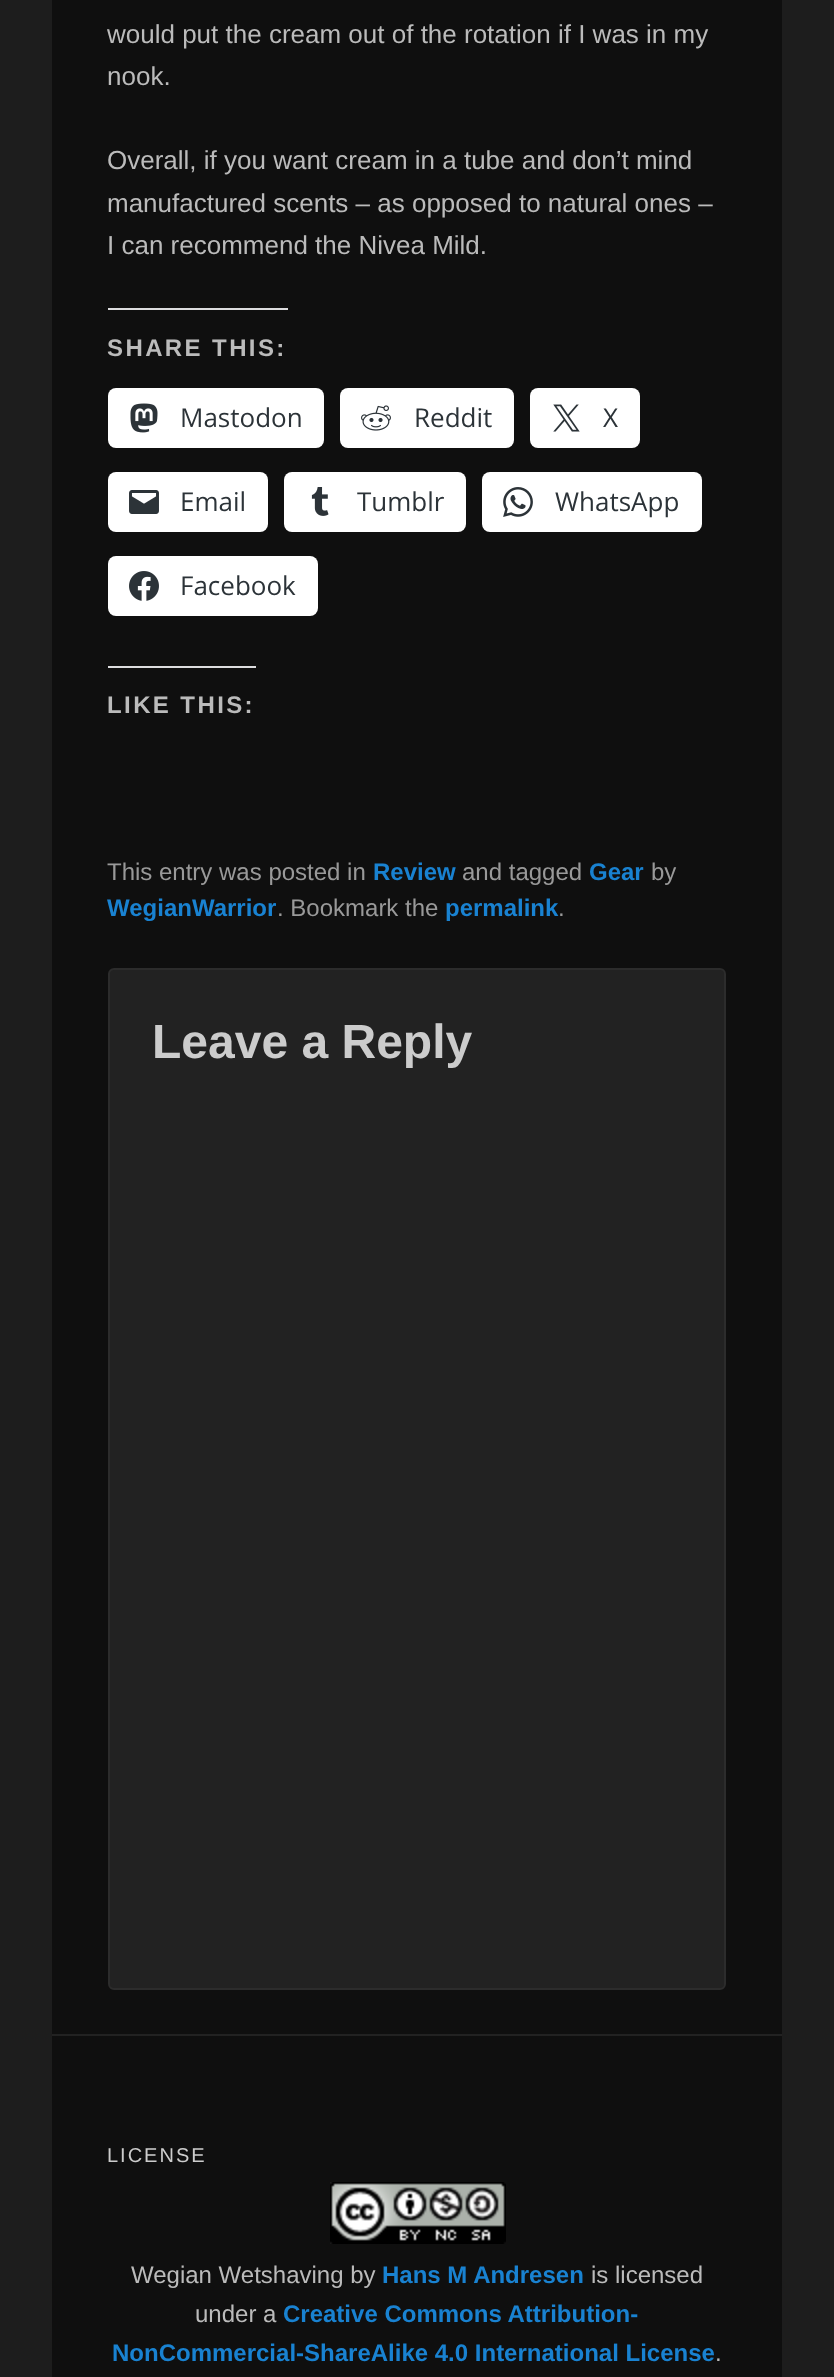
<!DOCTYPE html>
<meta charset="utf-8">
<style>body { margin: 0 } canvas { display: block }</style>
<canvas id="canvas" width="834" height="2377"></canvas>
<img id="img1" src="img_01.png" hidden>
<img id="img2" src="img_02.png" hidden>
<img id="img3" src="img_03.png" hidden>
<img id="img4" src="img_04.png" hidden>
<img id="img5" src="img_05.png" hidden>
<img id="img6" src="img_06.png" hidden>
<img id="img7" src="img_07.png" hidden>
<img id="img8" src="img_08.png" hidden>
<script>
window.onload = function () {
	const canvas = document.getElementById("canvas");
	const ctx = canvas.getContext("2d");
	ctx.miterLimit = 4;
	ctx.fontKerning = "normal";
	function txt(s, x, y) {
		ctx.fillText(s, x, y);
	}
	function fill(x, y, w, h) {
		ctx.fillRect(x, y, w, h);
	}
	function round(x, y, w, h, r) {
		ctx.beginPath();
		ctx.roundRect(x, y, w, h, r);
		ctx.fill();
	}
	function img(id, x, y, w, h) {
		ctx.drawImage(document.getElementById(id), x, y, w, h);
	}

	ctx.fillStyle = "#1D1D1D";
	fill(0, 0, 834, 2377);
	ctx.fillStyle = "#0F0F0F";
	fill(52, 0, 730, 2377);
	ctx.fillStyle = "#DCDCDE";
	fill(108, 308, 180, 2);
	ctx.fillStyle = "#FFFFFF";
	round(108, 388, 216, 60, 8);
	img("img1", 130, 403, 28, 30);
	round(340, 388, 174, 60, 8);
	img("img2", 361, 405, 30, 26);
	round(530, 388, 110, 60, 8);
	img("img3", 553, 404, 27, 28);
	round(108, 472, 160, 60, 8);
	img("img4", 129, 490, 30, 24);
	round(284, 472, 182, 60, 8);
	img("img5", 311, 487, 18, 29);
	round(482, 472, 220, 60, 8);
	img("img6", 503, 487, 30, 30);
	round(108, 556, 210, 60, 8);
	img("img7", 129, 571, 30, 30);
	ctx.fillStyle = "#DCDCDE";
	fill(108, 666, 148, 2);
	ctx.fillStyle = "#222222";
	ctx.beginPath();
	ctx.roundRect(109, 969, 616, 1020, 5);
	ctx.fill();
	ctx.strokeStyle = "#2C2C2C";
	ctx.lineWidth = 2;
	ctx.stroke();
	fill(52, 2034, 730, 2);
	img("img8", 330, 2182, 176, 62);
	ctx.font = "26px Liberation Sans";
	ctx.fillStyle = "#BBBBBB";
	txt("would put the cream out of the rotation if I was in my", 107, 43);
	txt("nook.", 107, 85);
	txt("Overall, if you want cream in a tube and don’t mind", 107, 169);
	txt("manufactured scents – as opposed to natural ones –", 107, 212);
	txt("I can recommend the Nivea Mild.", 107, 254);
	ctx.letterSpacing = "2.4px";
	ctx.font = "bold 24px Liberation Sans";
	txt("SHARE THIS:", 107, 356);
	ctx.letterSpacing = "0px";
	ctx.font = "26px Open Sans";
	ctx.fillStyle = "#2C3338";
	txt("Mastodon", 180, 427);
	txt("Reddit", 414, 427);
	txt("X", 603, 427);
	txt("Email", 180, 511);
	txt("Tumblr", 357, 511);
	txt("WhatsApp", 555, 511);
	txt("Facebook", 180, 595);
	ctx.letterSpacing = "2.4px";
	ctx.font = "bold 24px Liberation Sans";
	ctx.fillStyle = "#BBBBBB";
	txt("LIKE THIS:", 107, 713);
	ctx.letterSpacing = "0px";
	ctx.font = "24px Liberation Sans";
	ctx.fillStyle = "#999999";
	txt("This entry was posted in", 107, 880);
	ctx.font = "bold 24px Liberation Sans";
	ctx.fillStyle = "#1982D1";
	txt("Review", 373, 880);
	ctx.font = "24px Liberation Sans";
	ctx.fillStyle = "#999999";
	txt("and tagged", 462, 880);
	ctx.font = "bold 24px Liberation Sans";
	ctx.fillStyle = "#1982D1";
	txt("Gear", 589, 880);
	ctx.font = "24px Liberation Sans";
	ctx.fillStyle = "#999999";
	txt("by", 651, 880);
	ctx.font = "bold 24px Liberation Sans";
	ctx.fillStyle = "#1982D1";
	txt("WegianWarrior", 107, 916);
	ctx.font = "24px Liberation Sans";
	ctx.fillStyle = "#999999";
	txt(". Bookmark the", 277, 916);
	ctx.font = "bold 24px Liberation Sans";
	ctx.fillStyle = "#1982D1";
	txt("permalink", 445, 916);
	ctx.font = "24px Liberation Sans";
	ctx.fillStyle = "#999999";
	txt(".", 558, 916);
	ctx.font = "bold 48px Liberation Sans";
	ctx.fillStyle = "#CCCCCC";
	txt("Leave a Reply", 152, 1058);
	ctx.letterSpacing = "2px";
	ctx.font = "20px Liberation Sans";
	txt("LICENSE", 107, 2162);
	ctx.letterSpacing = "0px";
	ctx.font = "24px Liberation Sans";
	ctx.fillStyle = "#BBBBBB";
	txt("Wegian Wetshaving by", 131, 2283);
	ctx.font = "bold 24px Liberation Sans";
	ctx.fillStyle = "#1982D1";
	txt("Hans M Andresen", 382, 2283);
	ctx.font = "24px Liberation Sans";
	ctx.fillStyle = "#BBBBBB";
	txt("is licensed", 591, 2283);
	txt("under a", 195, 2322);
	ctx.font = "bold 24px Liberation Sans";
	ctx.fillStyle = "#1982D1";
	txt("Creative Commons Attribution-", 283, 2322);
	txt("NonCommercial-ShareAlike 4.0 International License", 112, 2361);
	ctx.font = "24px Liberation Sans";
	ctx.fillStyle = "#BBBBBB";
	txt(".", 715, 2361);
};
</script>
